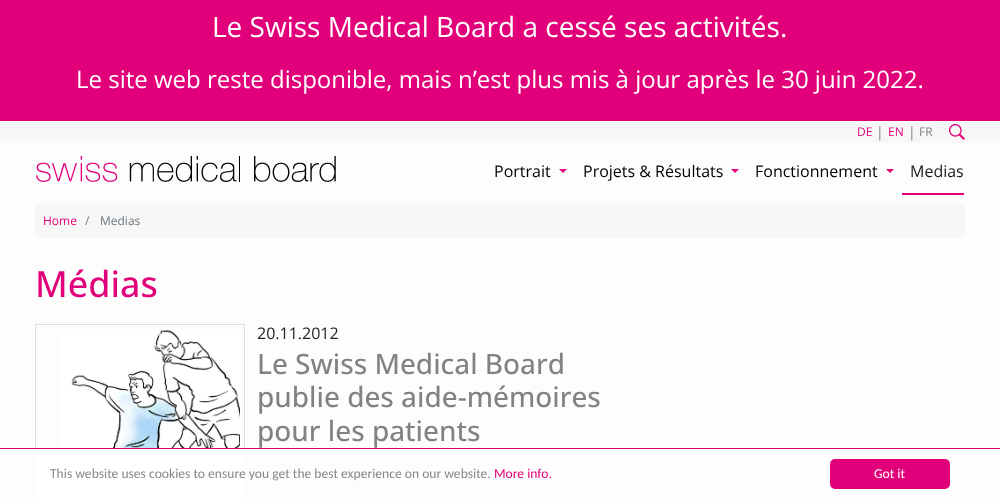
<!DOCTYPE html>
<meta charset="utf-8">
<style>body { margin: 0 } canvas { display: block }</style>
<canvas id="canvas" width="1000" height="499"></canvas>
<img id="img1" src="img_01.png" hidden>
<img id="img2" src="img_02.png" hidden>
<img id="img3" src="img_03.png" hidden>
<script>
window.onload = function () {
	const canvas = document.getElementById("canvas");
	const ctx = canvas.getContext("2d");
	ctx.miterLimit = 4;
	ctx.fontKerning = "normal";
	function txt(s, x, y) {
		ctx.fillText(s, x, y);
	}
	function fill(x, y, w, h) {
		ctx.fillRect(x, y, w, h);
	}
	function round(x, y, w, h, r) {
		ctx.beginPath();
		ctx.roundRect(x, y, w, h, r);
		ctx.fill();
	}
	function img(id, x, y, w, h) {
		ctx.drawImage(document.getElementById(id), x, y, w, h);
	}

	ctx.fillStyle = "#FDFDFD";
	fill(0, 0, 1000, 499);
	ctx.fillStyle = "#E2007A";
	fill(0, 0, 1000, 121);
	ctx.fillStyle = "#F7F7F7";
	fill(0, 121, 1000, 22);
	img("img1", 949, 124, 16, 16);
	img("img2", 36, 156, 300, 26);
	ctx.fillStyle = "#E2007A";
	ctx.beginPath();
	ctx.moveTo(559, 169);
	ctx.lineTo(567, 169);
	ctx.lineTo(563, 173);
	ctx.closePath();
	ctx.fill();
	ctx.beginPath();
	ctx.moveTo(731, 169);
	ctx.lineTo(739, 169);
	ctx.lineTo(735, 173);
	ctx.closePath();
	ctx.fill();
	ctx.beginPath();
	ctx.moveTo(886, 169);
	ctx.lineTo(894, 169);
	ctx.lineTo(890, 173);
	ctx.closePath();
	ctx.fill();
	fill(902, 193, 62, 2);
	ctx.fillStyle = "#F7F7F7";
	round(35, 203, 930, 35, 4);
	ctx.strokeStyle = "#DDDDDD";
	ctx.strokeRect(35.5, 324.5, 209, 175);
	img("img3", 59, 329, 181, 119);
	ctx.fillStyle = "#FFFFFF";
	fill(35, 449, 210, 50);
	ctx.fillStyle = "#E2007A";
	fill(0, 448, 1000, 1);
	round(830, 459, 120, 30, 5);
	ctx.font = "28px Open Sans";
	ctx.fillStyle = "#FFFFFF";
	txt("Le Swiss Medical Board a cessé ses activités.", 212, 37);
	ctx.font = "24px Open Sans";
	txt("Le site web reste disponible, mais n’est plus mis à jour après le 30 juin 2022.", 76, 88);
	ctx.font = "12px Open Sans";
	ctx.fillStyle = "#E2007A";
	txt("DE", 857, 136);
	ctx.font = "14px Open Sans";
	ctx.fillStyle = "#828282";
	txt("|", 876, 137);
	ctx.font = "12px Open Sans";
	ctx.fillStyle = "#E2007A";
	txt("EN", 888, 136);
	ctx.font = "14px Open Sans";
	ctx.fillStyle = "#828282";
	txt("|", 908, 137);
	ctx.font = "12px Open Sans";
	txt("FR", 919, 136);
	ctx.font = "16px Open Sans";
	ctx.fillStyle = "#000000";
	txt("Portrait", 494, 177);
	txt("Projets & Résultats", 583, 177);
	txt("Fonctionnement", 755, 177);
	ctx.fillStyle = "#1B1B1B";
	txt("Medias", 910, 177);
	ctx.font = "12px Open Sans";
	ctx.fillStyle = "#E2007A";
	txt("Home", 43, 225);
	ctx.fillStyle = "#6C757D";
	txt("/", 85, 225);
	txt("Medias", 100, 225);
	ctx.font = "500 36px Open Sans";
	ctx.fillStyle = "#E2007A";
	txt("Médias", 35, 297);
	ctx.font = "16px Open Sans";
	ctx.fillStyle = "#212529";
	txt("20.11.2012", 257, 339);
	ctx.font = "500 28px Open Sans";
	ctx.fillStyle = "#828282";
	txt("Le Swiss Medical Board", 257, 374);
	txt("publie des aide-mémoires", 257, 407);
	txt("pour les patients", 257, 441);
	ctx.font = "13.6px Carlito";
	ctx.fillStyle = "#888888";
	txt("This website uses cookies to ensure you get the best experience on our website.", 50, 478);
	ctx.fillStyle = "#E2007A";
	txt("More info.", 494, 478);
	ctx.fillStyle = "#FFFFFF";
	txt("Got it", 874, 478);
};
</script>
